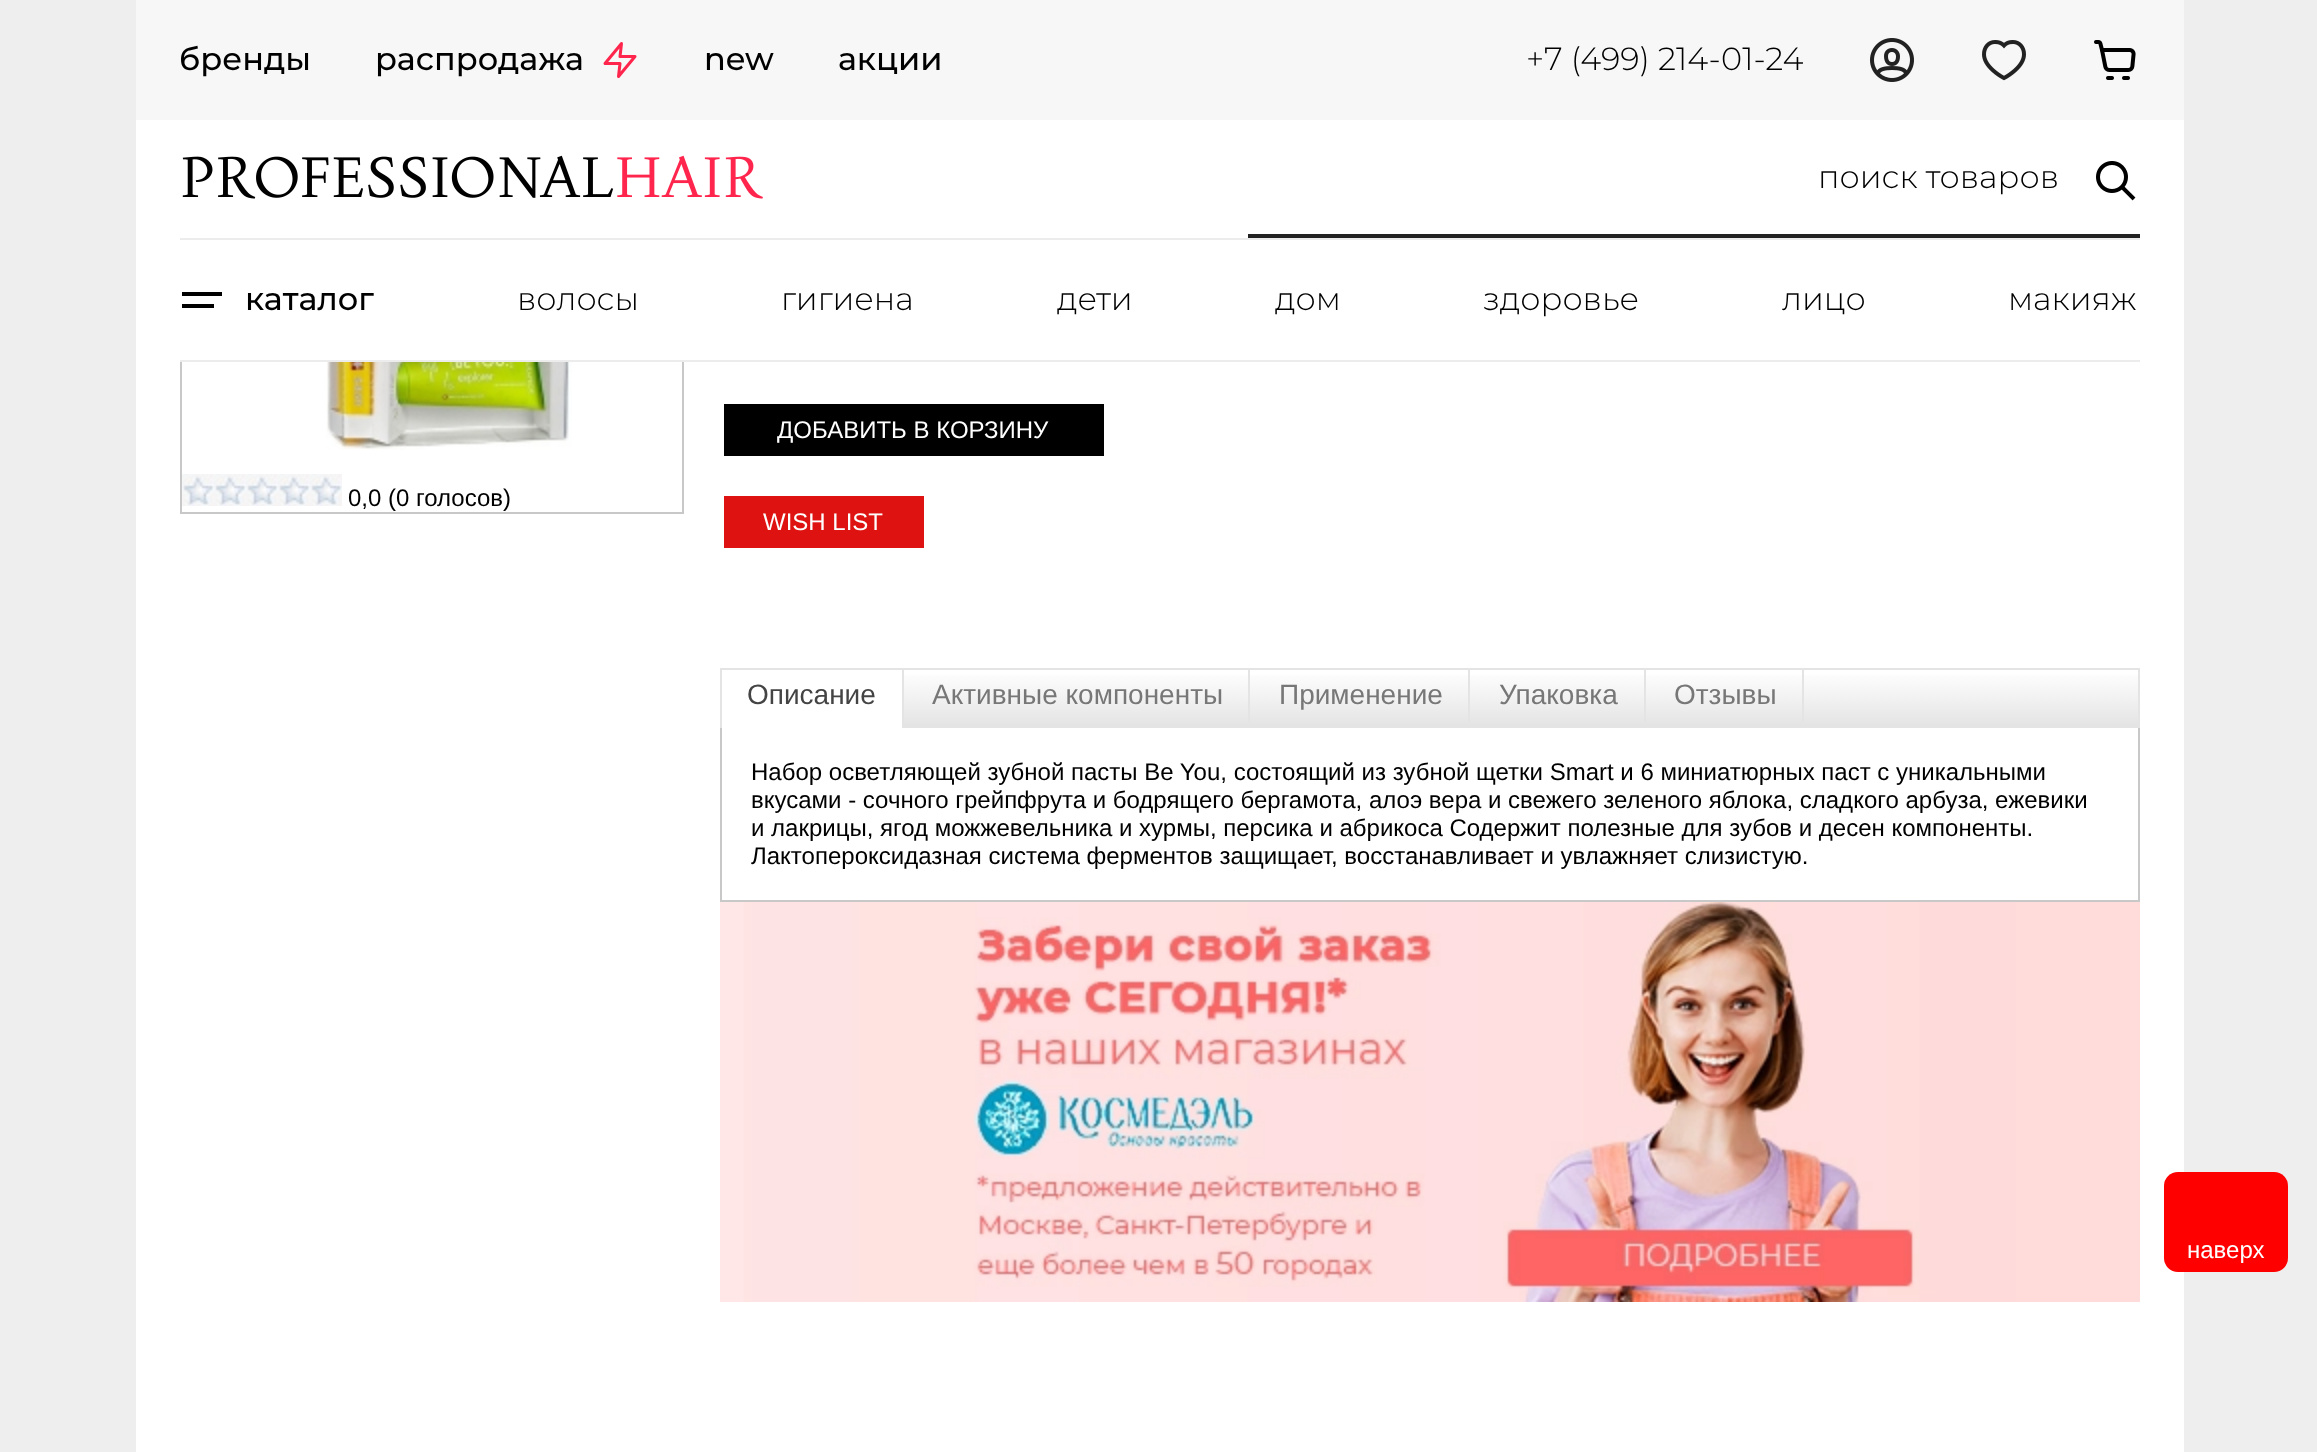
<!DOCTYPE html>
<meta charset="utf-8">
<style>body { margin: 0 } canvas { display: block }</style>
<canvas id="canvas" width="2317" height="1452"></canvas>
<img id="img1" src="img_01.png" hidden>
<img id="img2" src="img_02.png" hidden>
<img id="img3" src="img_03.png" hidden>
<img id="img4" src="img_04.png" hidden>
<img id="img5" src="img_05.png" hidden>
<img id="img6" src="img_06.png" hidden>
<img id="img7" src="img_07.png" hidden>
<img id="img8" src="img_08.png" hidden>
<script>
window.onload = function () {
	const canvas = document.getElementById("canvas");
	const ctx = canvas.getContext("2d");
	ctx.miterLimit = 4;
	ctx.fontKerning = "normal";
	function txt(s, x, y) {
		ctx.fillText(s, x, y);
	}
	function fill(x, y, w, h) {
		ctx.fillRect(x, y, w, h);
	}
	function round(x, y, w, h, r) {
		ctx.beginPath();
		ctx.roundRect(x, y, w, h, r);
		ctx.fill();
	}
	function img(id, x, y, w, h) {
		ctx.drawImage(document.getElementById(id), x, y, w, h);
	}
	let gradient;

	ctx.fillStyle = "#EEEEEE";
	fill(0, 0, 2317, 1452);
	ctx.fillStyle = "#FFFFFF";
	fill(136, 360, 2048, 1092);
	ctx.strokeStyle = "#C8C8C8";
	ctx.lineWidth = 2;
	ctx.strokeRect(181, -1, 502, 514);
	ctx.fillStyle = "#F7F7F7";
	fill(136, 0, 2048, 120);
	ctx.beginPath();
	ctx.moveTo(621.5, 43.5);
	ctx.lineTo(605, 63.5);
	ctx.lineTo(620, 63.5);
	ctx.lineTo(618.5, 76.5);
	ctx.lineTo(635, 56.5);
	ctx.lineTo(620, 56.5);
	ctx.closePath();
	ctx.strokeStyle = "#FF254C";
	ctx.lineWidth = 3;
	ctx.lineCap = "round";
	ctx.lineJoin = "round";
	ctx.stroke();
	img("img1", 1870, 38, 44, 44);
	img("img2", 1982, 40, 44, 41);
	img("img3", 2094, 40, 42, 40);
	ctx.fillStyle = "#FFFFFF";
	fill(136, 120, 2048, 240);
	img("img4", 182, 155, 581, 44);
	ctx.fillStyle = "#222222";
	fill(1248, 234, 892, 4);
	img("img5", 2096, 161, 40, 40);
	ctx.fillStyle = "#ECECED";
	fill(180, 238, 1960, 2);
	ctx.beginPath();
	ctx.moveTo(220, 294);
	ctx.lineTo(184, 294);
	ctx.moveTo(184, 306);
	ctx.lineTo(212, 306);
	ctx.strokeStyle = "#000000";
	ctx.lineWidth = 4;
	ctx.lineCap = "square";
	ctx.stroke();
	fill(180, 360, 1960, 2);
	ctx.fillStyle = "#000000";
	fill(724, 404, 380, 52);
	img("img6", 326, 362, 246, 88);
	img("img7", 182, 474, 160, 32);
	ctx.fillStyle = "#DF1212";
	fill(724, 496, 200, 52);
	gradient = ctx.createLinearGradient(1430, 726, 1430, 670);
	gradient.addColorStop(0, "#E4E4E4");
	gradient.addColorStop(1, "#FFFFFF");
	ctx.fillStyle = gradient;
	fill(904, 675, 1234, 51);
	ctx.strokeStyle = "#E4E4E4";
	ctx.lineWidth = 2;
	ctx.lineJoin = "miter";
	ctx.strokeRect(721, 669, 1418, 58);
	ctx.fillStyle = "#FFFFFF";
	fill(722, 726, 180, 2);
	ctx.fillStyle = "#E4E4E4";
	fill(902, 670, 2, 58);
	fill(1248, 670, 2, 52);
	fill(1468, 670, 2, 52);
	fill(1644, 670, 2, 52);
	fill(1802, 670, 2, 52);
	ctx.fillStyle = "#C8C8C8";
	fill(2138, 728, 2, 174);
	fill(720, 900, 1420, 2);
	fill(720, 728, 2, 174);
	img("img8", 720, 902, 1420, 400);
	ctx.fillStyle = "#FF0000";
	round(2164, 1172, 124, 100, 14);
	ctx.font = "500 32px Montserrat";
	ctx.fillStyle = "#000000";
	txt("бренды", 179, 70);
	txt("распродажа", 375, 70);
	txt("new", 704, 70);
	txt("акции", 838, 70);
	ctx.font = "300 32px Montserrat";
	txt("+7 (499) 214-01-24", 1526, 70);
	txt("поиск товаров", 1818, 188);
	ctx.font = "500 32px Montserrat";
	txt("каталог", 245, 310);
	ctx.font = "300 32px Montserrat";
	txt("волосы", 517, 310);
	txt("гигиена", 781, 310);
	txt("дети", 1057, 310);
	txt("дом", 1275, 310);
	txt("здоровье", 1483, 310);
	txt("лицо", 1782, 310);
	txt("макияж", 2008, 310);
	ctx.font = "24px Liberation Sans";
	ctx.fillStyle = "#FFFFFF";
	txt("ДОБАВИТЬ В КОРЗИНУ", 777, 438);
	ctx.fillStyle = "#000000";
	txt("0,0 (0 голосов)", 348, 506);
	ctx.fillStyle = "#FFFFFF";
	txt("WISH LIST", 763, 530);
	ctx.font = "28px Liberation Sans";
	ctx.fillStyle = "#444444";
	txt("Описание", 747, 704);
	ctx.fillStyle = "#777777";
	txt("Активные компоненты", 932, 704);
	txt("Применение", 1279, 704);
	txt("Упаковка", 1499, 704);
	txt("Отзывы", 1674, 704);
	ctx.font = "24px Liberation Sans";
	ctx.fillStyle = "#000000";
	txt("Набор осветляющей зубной пасты Be You, состоящий из зубной щетки Smart и 6 миниатюрных паст с уникальными", 751, 780);
	txt("вкусами - сочного грейпфрута и бодрящего бергамота, алоэ вера и свежего зеленого яблока, сладкого арбуза, ежевики", 751, 808);
	txt("и лакрицы, ягод можжевельника и хурмы, персика и абрикоса Содержит полезные для зубов и десен компоненты.", 751, 836);
	txt("Лактопероксидазная система ферментов защищает, восстанавливает и увлажняет слизистую.", 751, 864);
	ctx.fillStyle = "#FFFFFF";
	txt("наверх", 2187, 1258);
};
</script>
